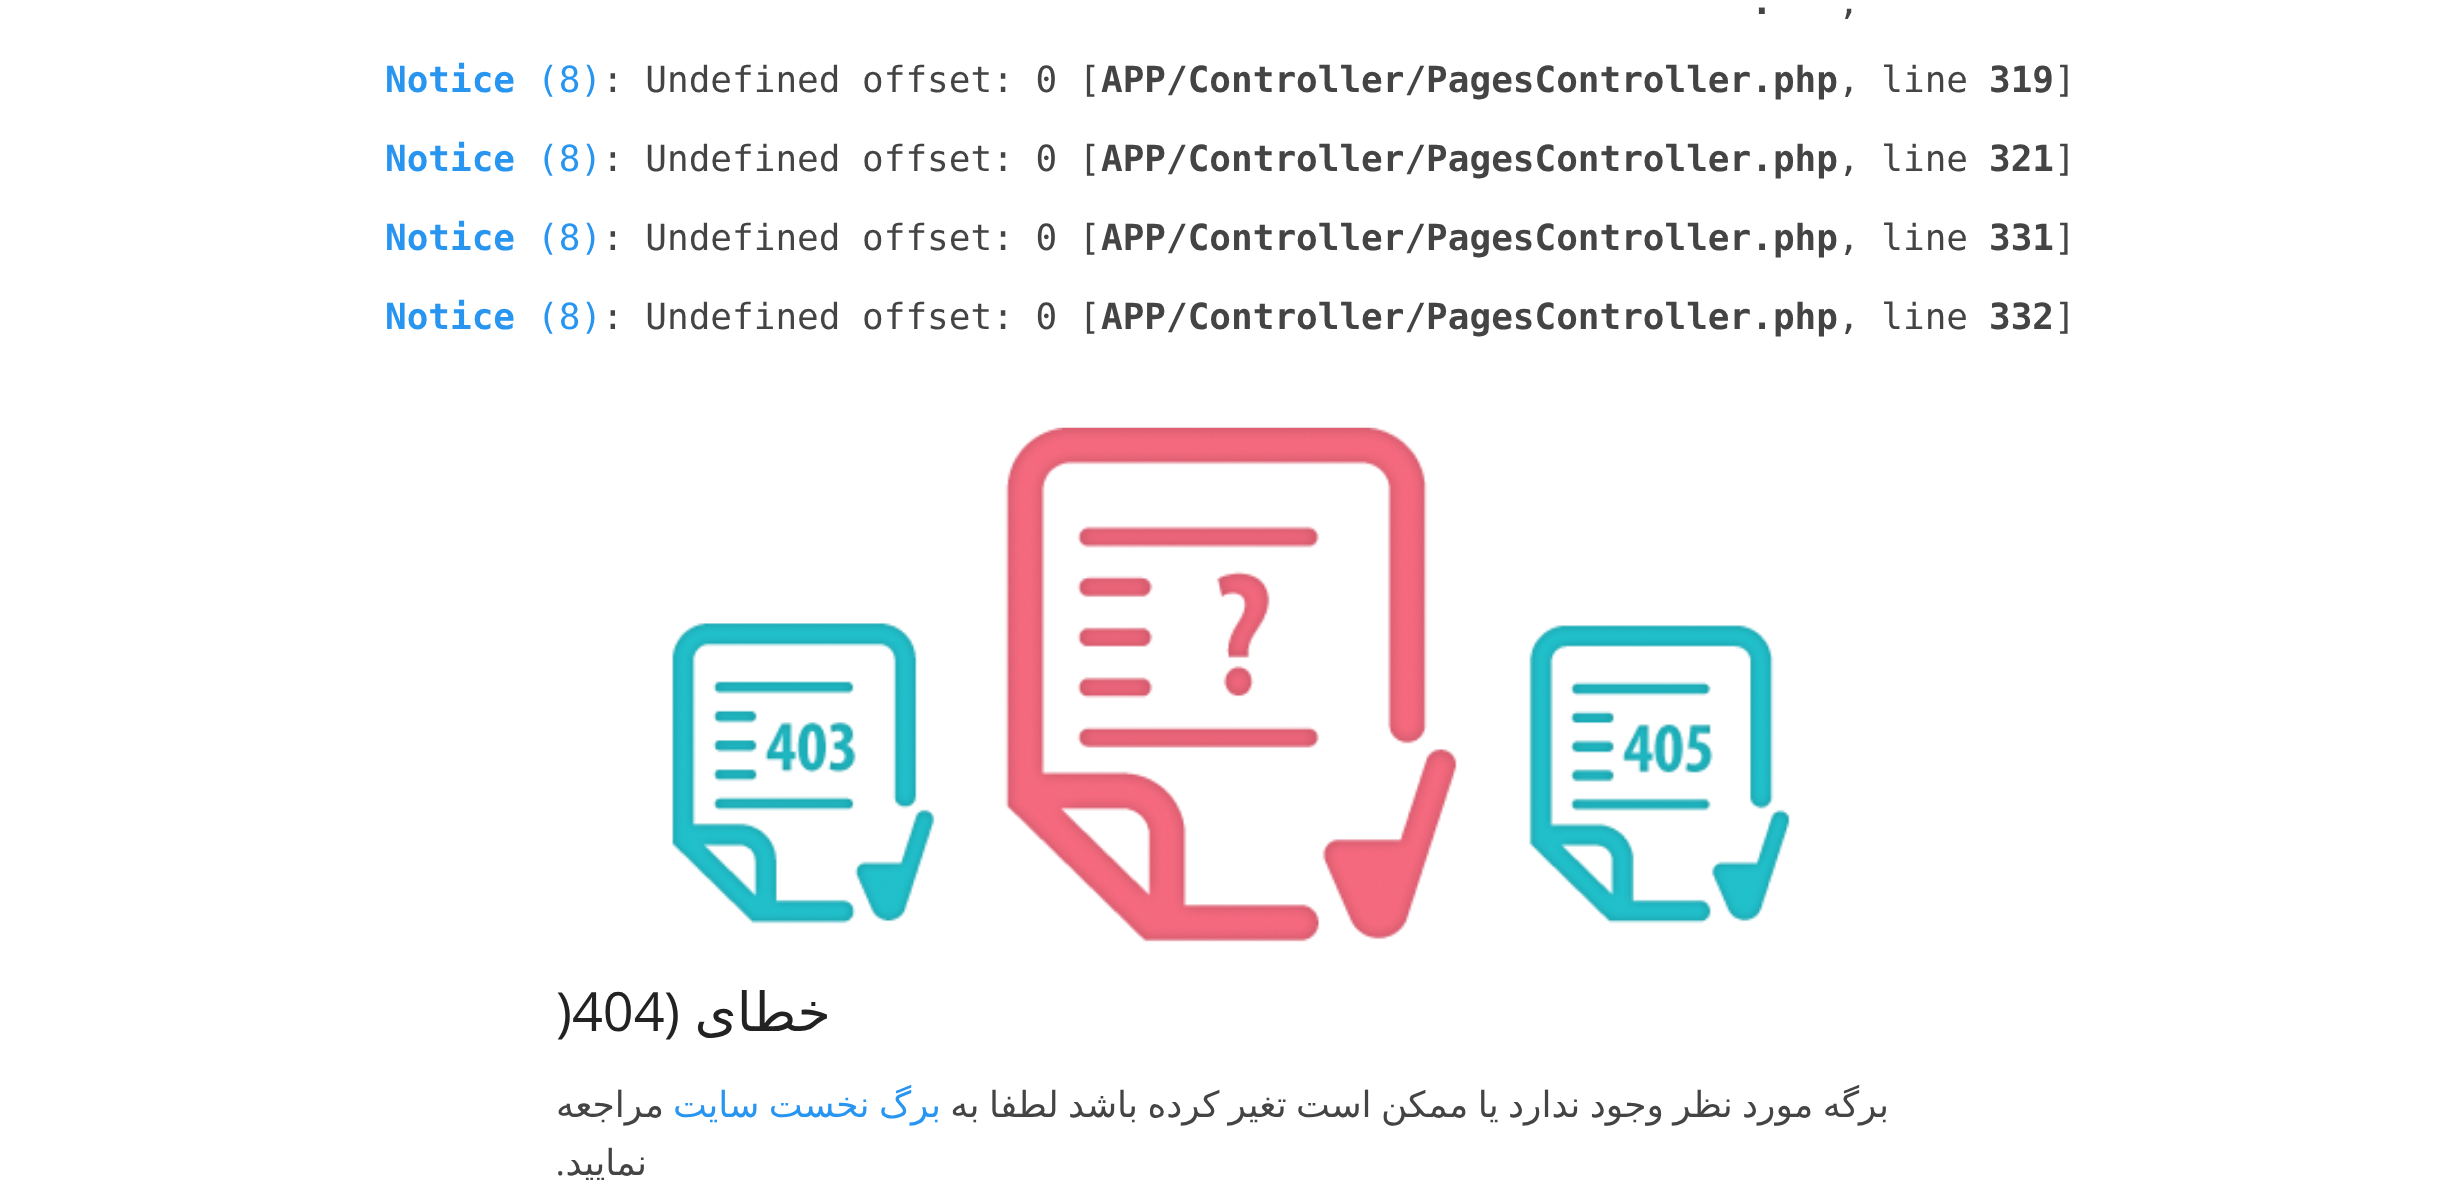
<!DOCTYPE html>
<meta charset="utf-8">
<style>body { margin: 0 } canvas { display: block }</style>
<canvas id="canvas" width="2460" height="1180"></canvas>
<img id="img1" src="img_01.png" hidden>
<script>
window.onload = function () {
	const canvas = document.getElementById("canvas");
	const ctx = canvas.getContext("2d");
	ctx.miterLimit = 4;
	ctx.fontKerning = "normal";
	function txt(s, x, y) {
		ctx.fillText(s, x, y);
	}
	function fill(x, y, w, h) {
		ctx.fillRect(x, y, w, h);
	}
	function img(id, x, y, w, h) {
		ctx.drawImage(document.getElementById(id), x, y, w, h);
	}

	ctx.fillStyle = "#FFFFFF";
	fill(0, 0, 2460, 1180);
	img("img1", 672, 427, 1118, 515);
	ctx.font = "bold 36px DejaVu Sans Mono";
	ctx.fillStyle = "#444444";
	txt(".", 1751, 14);
	ctx.font = "36px DejaVu Sans Mono";
	txt(",", 1838, 14);
	ctx.font = "bold 36px DejaVu Sans Mono";
	ctx.fillStyle = "#2895F1";
	txt("Notice", 385, 92);
	ctx.font = "36px DejaVu Sans Mono";
	txt("(8)", 537, 92);
	ctx.fillStyle = "#444444";
	txt(": Undefined offset: 0 [", 602, 92);
	ctx.font = "bold 36px DejaVu Sans Mono";
	txt("APP/Controller/PagesController.php", 1101, 92);
	ctx.font = "36px DejaVu Sans Mono";
	txt(", line", 1838, 92);
	ctx.font = "bold 36px DejaVu Sans Mono";
	txt("319", 1989, 92);
	ctx.font = "36px DejaVu Sans Mono";
	txt("]", 2054, 92);
	ctx.font = "bold 36px DejaVu Sans Mono";
	ctx.fillStyle = "#2895F1";
	txt("Notice", 385, 171);
	ctx.font = "36px DejaVu Sans Mono";
	txt("(8)", 537, 171);
	ctx.fillStyle = "#444444";
	txt(": Undefined offset: 0 [", 602, 171);
	ctx.font = "bold 36px DejaVu Sans Mono";
	txt("APP/Controller/PagesController.php", 1101, 171);
	ctx.font = "36px DejaVu Sans Mono";
	txt(", line", 1838, 171);
	ctx.font = "bold 36px DejaVu Sans Mono";
	txt("321", 1989, 171);
	ctx.font = "36px DejaVu Sans Mono";
	txt("]", 2054, 171);
	ctx.font = "bold 36px DejaVu Sans Mono";
	ctx.fillStyle = "#2895F1";
	txt("Notice", 385, 250);
	ctx.font = "36px DejaVu Sans Mono";
	txt("(8)", 537, 250);
	ctx.fillStyle = "#444444";
	txt(": Undefined offset: 0 [", 602, 250);
	ctx.font = "bold 36px DejaVu Sans Mono";
	txt("APP/Controller/PagesController.php", 1101, 250);
	ctx.font = "36px DejaVu Sans Mono";
	txt(", line", 1838, 250);
	ctx.font = "bold 36px DejaVu Sans Mono";
	txt("331", 1989, 250);
	ctx.font = "36px DejaVu Sans Mono";
	txt("]", 2054, 250);
	ctx.font = "bold 36px DejaVu Sans Mono";
	ctx.fillStyle = "#2895F1";
	txt("Notice", 385, 329);
	ctx.font = "36px DejaVu Sans Mono";
	txt("(8)", 537, 329);
	ctx.fillStyle = "#444444";
	txt(": Undefined offset: 0 [", 602, 329);
	ctx.font = "bold 36px DejaVu Sans Mono";
	txt("APP/Controller/PagesController.php", 1101, 329);
	ctx.font = "36px DejaVu Sans Mono";
	txt(", line", 1838, 329);
	ctx.font = "bold 36px DejaVu Sans Mono";
	txt("332", 1989, 329);
	ctx.font = "36px DejaVu Sans Mono";
	txt("]", 2054, 329);
	ctx.font = "54px Open Sans";
	ctx.fillStyle = "#222222";
	txt(")404", 556, 1031);
	ctx.direction = "rtl";
	txt("(", 680, 1031);
	ctx.font = "54px DejaVu Sans";
	txt("خطای", 831, 1031);
	ctx.font = "36px DejaVu Sans";
	ctx.fillStyle = "#444444";
	txt("مراجعه", 664, 1117);
	ctx.wordSpacing = "-2.1px";
	ctx.fillStyle = "#2895F1";
	txt("برگ نخست سایت", 941, 1117);
	ctx.fillStyle = "#444444";
	txt("برگه مورد نظر وجود ندارد یا ممکن است تغیر کرده باشد لطفا به", 1889, 1117);
	ctx.wordSpacing = "0px";
	ctx.font = "36px Open Sans";
	txt(".", 565, 1175);
	ctx.font = "36px DejaVu Sans";
	txt("نمایید", 647, 1175);
};
</script>
